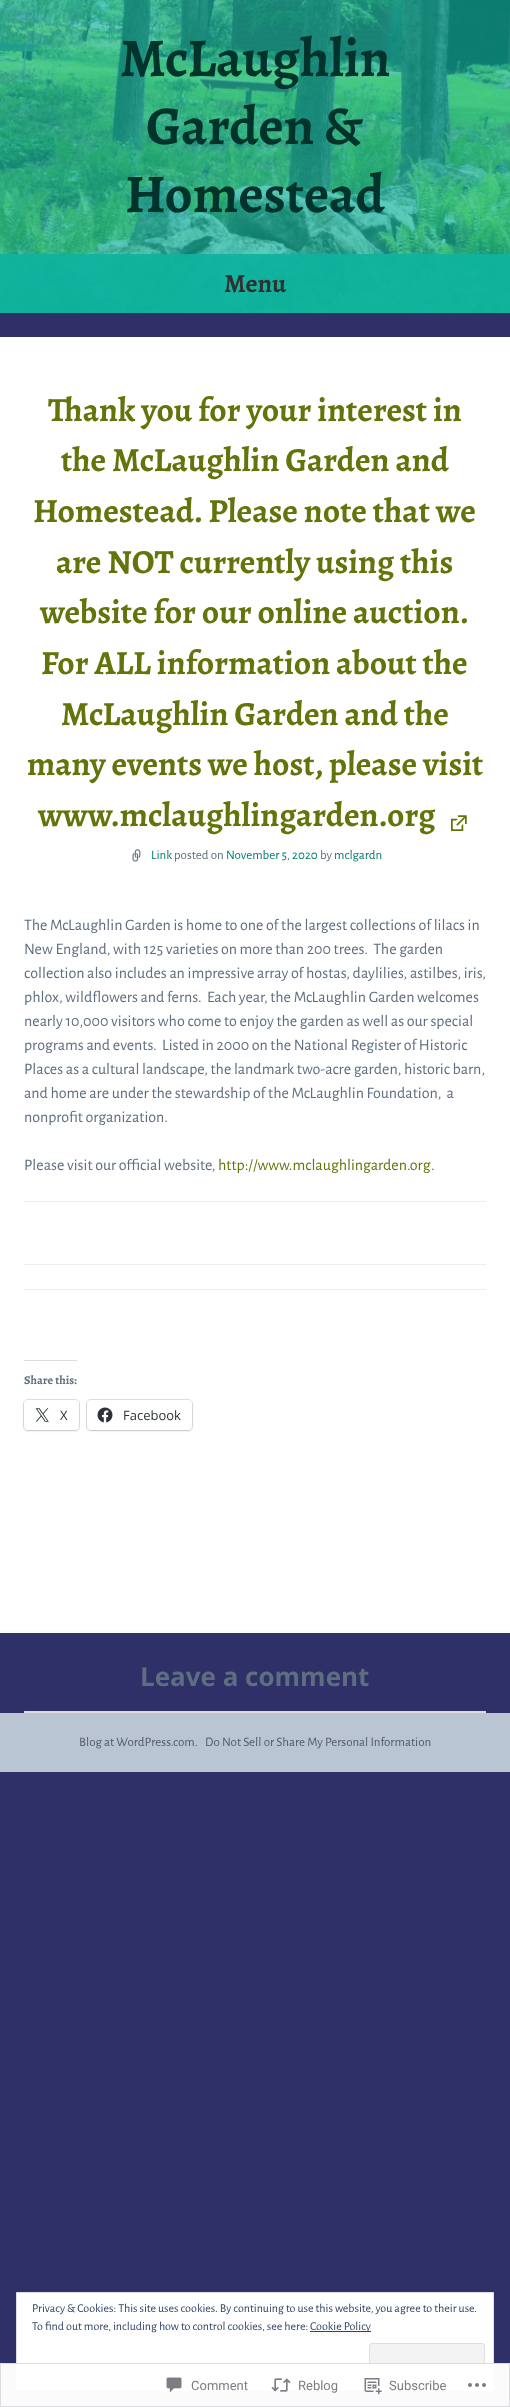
<!DOCTYPE html>
<meta charset="utf-8">
<style>body { margin: 0 } canvas { display: block }</style>
<canvas id="canvas" width="510" height="2407"></canvas>
<img id="img1" src="img_01.png" hidden>
<img id="img2" src="img_02.png" hidden>
<img id="img3" src="img_03.png" hidden>
<img id="img4" src="img_04.png" hidden>
<img id="img5" src="img_05.png" hidden>
<img id="img6" src="img_06.png" hidden>
<img id="img7" src="img_07.png" hidden>
<img id="img8" src="img_08.png" hidden>
<img id="img9" src="img_09.png" hidden>
<script>
window.onload = function () {
	const canvas = document.getElementById("canvas");
	const ctx = canvas.getContext("2d");
	ctx.miterLimit = 4;
	ctx.fontKerning = "normal";
	function txt(s, x, y) {
		ctx.fillText(s, x, y);
	}
	function fill(x, y, w, h) {
		ctx.fillRect(x, y, w, h);
	}
	function round(x, y, w, h, r) {
		ctx.beginPath();
		ctx.roundRect(x, y, w, h, r);
		ctx.fill();
	}
	function img(id, x, y, w, h) {
		ctx.drawImage(document.getElementById(id), x, y, w, h);
	}

	ctx.fillStyle = "#303068";
	fill(0, 0, 510, 2407);
	img("img1", 0, 0, 510, 313);
	ctx.fillStyle = "rgba(15, 179, 158, 0.75)";
	fill(0, 254, 510, 59);
	fill(0, 254, 510, 59);
	ctx.fillStyle = "#FFFFFF";
	fill(0, 337, 510, 1294);
	ctx.fillStyle = "#FBFBFB";
	fill(0, 1631, 510, 2);
	img("img2", 451, 815, 16, 16);
	img("img3", 132, 849, 9, 13);
	ctx.fillStyle = "#EEEEEE";
	fill(24, 1201, 462, 1);
	fill(24, 1264, 462, 1);
	fill(24, 1289, 462, 1);
	ctx.fillStyle = "#DCDCDE";
	fill(24, 1360, 53, 1);
	ctx.beginPath();
	ctx.roundRect(23.5, 1399.5, 56, 31, 4.5);
	ctx.strokeStyle = "#E0E0E0";
	ctx.stroke();
	ctx.fillStyle = "rgba(0, 0, 0, 0.12)";
	ctx.filter = "blur(1px)";
	ctx.beginPath();
	ctx.roundRect(24, 1401, 55, 30, 4);
	ctx.fill();
	ctx.filter = "none";
	ctx.fillStyle = "#FFFFFF";
	round(24, 1400, 55, 30, 4);
	img("img4", 35, 1408, 14, 14);
	ctx.beginPath();
	ctx.roundRect(86.5, 1399.5, 106, 31, 4.5);
	ctx.stroke();
	ctx.fillStyle = "rgba(0, 0, 0, 0.12)";
	ctx.filter = "blur(1px)";
	ctx.beginPath();
	ctx.roundRect(87, 1401, 105, 30, 4);
	ctx.fill();
	ctx.filter = "none";
	ctx.fillStyle = "#FFFFFF";
	round(87, 1400, 105, 30, 4);
	img("img5", 97, 1407, 16, 16);
	ctx.fillStyle = "#DCDCDE";
	fill(24, 1711, 462, 2);
	ctx.fillStyle = "#B9C5D3";
	fill(0, 1713, 510, 59);
	ctx.fillStyle = "#FFFFFF";
	ctx.beginPath();
	ctx.rect(16.5, 2292.5, 477, 98);
	ctx.fill();
	ctx.strokeStyle = "#DEDEDE";
	ctx.stroke();
	ctx.fillStyle = "#2E4467";
	fill(310, 2331, 61, 1);
	ctx.fillStyle = "#F3F3F3";
	ctx.beginPath();
	ctx.roundRect(369.5, 2343.5, 115, 38, 2.5);
	ctx.fill();
	ctx.stroke();
	ctx.fillStyle = "rgba(255, 255, 255, 0.98)";
	fill(0, 2363, 510, 44);
	ctx.strokeStyle = "rgba(220, 220, 222, 0.98)";
	ctx.strokeRect(0.5, 2363.5, 509, 43);
	img("img6", 166, 2377, 16, 16);
	img("img7", 271, 2378, 20, 14);
	img("img8", 364, 2378, 18, 17);
	img("img9", 468, 2383, 18, 4);
	ctx.font = "bold 54.5px Alegreya";
	ctx.fillStyle = "#00332B";
	txt("McLaughlin", 120, 76);
	txt("Garden &", 146, 144);
	txt("Homestead", 125, 212);
	ctx.font = "bold 26px Alegreya";
	ctx.fillStyle = "#303030";
	txt("Menu", 224, 292);
	ctx.font = "bold 33.75px Alegreya";
	ctx.fillStyle = "#64740A";
	txt("Thank you for your interest in", 48, 421);
	txt("the McLaughlin Garden and", 61, 471);
	txt("Homestead. Please note that we", 33, 522);
	txt("are NOT currently using this", 56, 573);
	txt("website for our online auction.", 40, 623);
	txt("For ALL information about the", 41, 674);
	txt("McLaughlin Garden and the", 61, 725);
	txt("many events we host, please visit", 27, 775);
	txt("www.mclaughlingarden.org", 38, 826);
	ctx.font = "13px Alegreya Sans";
	ctx.fillStyle = "#037C6C";
	txt("Link", 151, 859);
	ctx.fillStyle = "#5C727A";
	txt("posted on", 174, 859);
	ctx.fillStyle = "#037C6C";
	txt("November 5, 2020", 226, 859);
	ctx.fillStyle = "#5C727A";
	txt("by", 320, 859);
	ctx.fillStyle = "#037C6C";
	txt("mclgardn", 334, 859);
	ctx.font = "16px Alegreya Sans";
	ctx.fillStyle = "#5F6D80";
	txt("The McLaughlin Garden is home to one of the largest collections of lilacs in", 24, 930);
	txt("New England, with 125 varieties on more than 200 trees.  The garden", 24, 954);
	txt("collection also includes an impressive array of hostas, daylilies, astilbes, iris,", 24, 978);
	txt("phlox, wildflowers and ferns.  Each year, the McLaughlin Garden welcomes", 24, 1002);
	txt("nearly 10,000 visitors who come to enjoy the garden as well as our special", 24, 1026);
	txt("programs and events.  Listed in 2000 on the National Register of Historic", 24, 1050);
	txt("Places as a cultural landscape, the landmark two-acre garden, historic barn,", 24, 1074);
	txt("and home are under the stewardship of the McLaughlin Foundation,  a", 24, 1098);
	txt("nonprofit organization.", 24, 1122);
	txt("Please visit our official website,", 24, 1170);
	ctx.fillStyle = "#64740A";
	txt("http://www.mclaughlingarden.org", 218, 1170);
	ctx.fillStyle = "#5F6D80";
	txt(".", 431, 1170);
	ctx.font = "bold 12px Alegreya";
	txt("Share this:", 24, 1384);
	ctx.font = "13px Open Sans";
	ctx.fillStyle = "#2C3338";
	txt("X", 60, 1420);
	txt("Facebook", 123, 1420);
	ctx.font = "bold 26px Open Sans";
	ctx.fillStyle = "#5F6D80";
	txt("Leave a comment", 140, 1686);
	ctx.font = "13px Alegreya Sans";
	ctx.fillStyle = "#525B6A";
	txt("Blog at WordPress.com.", 79, 1746);
	txt("Do Not Sell or Share My Personal Information", 205, 1746);
	ctx.font = "12px Alegreya Sans";
	ctx.fillStyle = "#2E4467";
	txt("Privacy & Cookies: This site uses cookies. By continuing to use this website, you agree to their use.", 32, 2312);
	txt("To find out more, including how to control cookies, see here:", 32, 2330);
	txt("Cookie Policy", 310, 2330);
	ctx.font = "13px Roboto";
	ctx.fillStyle = "#7B7F84";
	txt("Comment", 191, 2390);
	txt("Reblog", 298, 2390);
	txt("Subscribe", 389, 2390);
};
</script>
